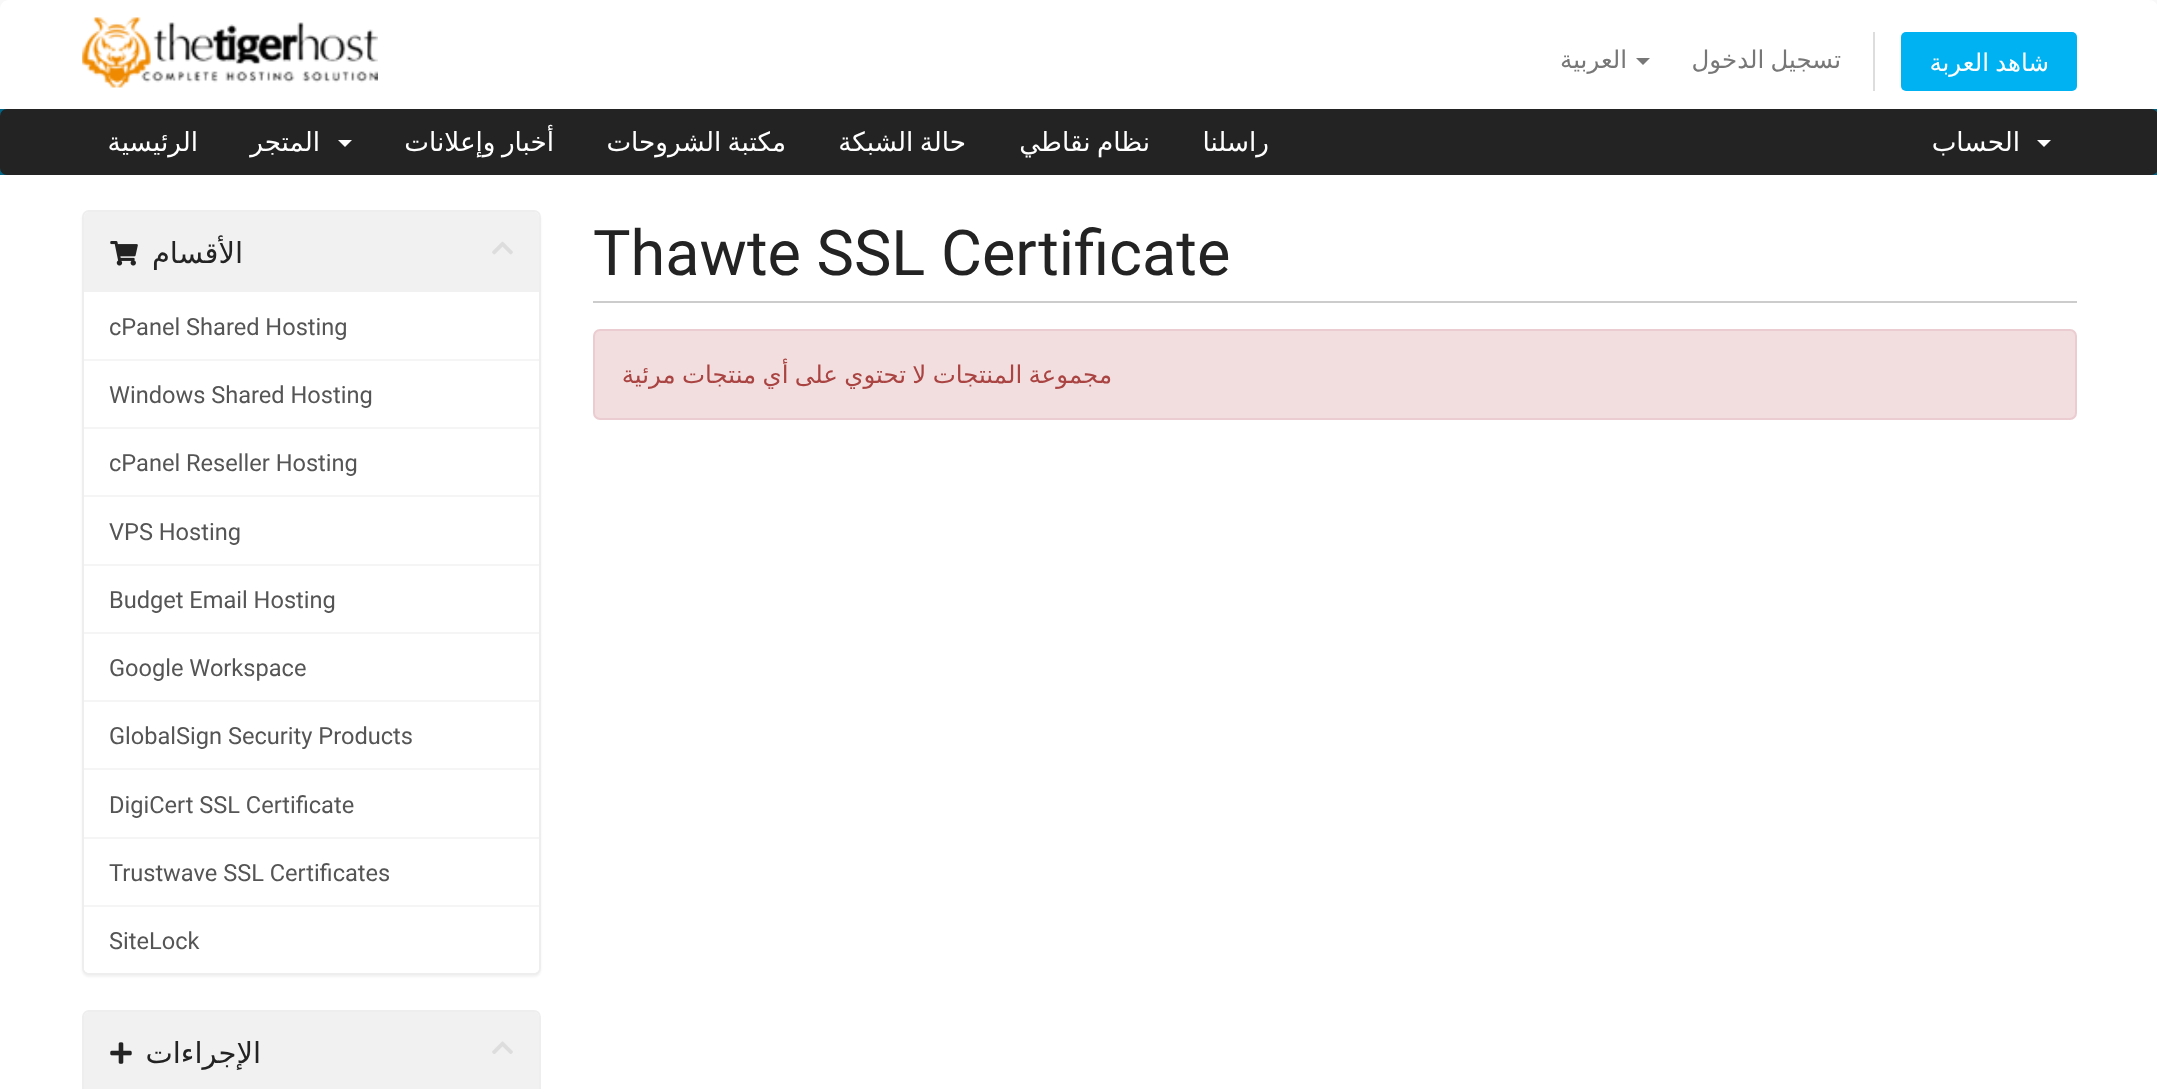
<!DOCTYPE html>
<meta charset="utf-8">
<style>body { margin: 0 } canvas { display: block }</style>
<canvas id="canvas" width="2157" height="1089"></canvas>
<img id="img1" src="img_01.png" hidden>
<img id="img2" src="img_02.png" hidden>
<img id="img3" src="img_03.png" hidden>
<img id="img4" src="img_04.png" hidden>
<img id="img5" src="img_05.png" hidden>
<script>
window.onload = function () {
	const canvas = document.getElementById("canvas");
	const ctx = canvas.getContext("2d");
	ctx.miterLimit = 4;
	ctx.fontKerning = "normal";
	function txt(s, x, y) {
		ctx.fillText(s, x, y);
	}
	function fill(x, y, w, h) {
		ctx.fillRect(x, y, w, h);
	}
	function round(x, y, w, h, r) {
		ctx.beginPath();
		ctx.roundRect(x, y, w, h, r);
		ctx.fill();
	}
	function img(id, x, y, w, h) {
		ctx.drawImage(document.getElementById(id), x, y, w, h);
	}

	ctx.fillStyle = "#F8F8F8";
	fill(0, 0, 2157, 1089);
	ctx.fillStyle = "#FFFFFF";
	ctx.beginPath();
	ctx.moveTo(9, 0);
	ctx.lineTo(2149, 0);
	ctx.bezierCurveTo(2154, 0, 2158, 4, 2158, 9);
	ctx.lineTo(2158, 109);
	ctx.lineTo(0, 109);
	ctx.lineTo(0, 9);
	ctx.bezierCurveTo(0, 4, 4, 0, 9, 0);
	ctx.closePath();
	ctx.fill();
	img("img1", 82, 17, 296, 71);
	ctx.fillStyle = "#777777";
	ctx.beginPath();
	ctx.moveTo(1636, 58);
	ctx.lineTo(1650, 58);
	ctx.lineTo(1643, 65);
	ctx.closePath();
	ctx.fill();
	ctx.fillStyle = "#DDDDDD";
	fill(1873, 32, 2, 59);
	ctx.fillStyle = "#00B2F2";
	round(1901, 32, 176, 59, 5);
	ctx.fillStyle = "#006687";
	fill(0, 109, 2157, 66);
	ctx.fillStyle = "#232323";
	round(0, 109, 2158, 66, 7);
	ctx.fillStyle = "#FFFFFF";
	ctx.beginPath();
	ctx.moveTo(338, 140);
	ctx.lineTo(352, 140);
	ctx.lineTo(345, 147);
	ctx.closePath();
	ctx.fill();
	ctx.beginPath();
	ctx.moveTo(2037, 140);
	ctx.lineTo(2051, 140);
	ctx.lineTo(2044, 147);
	ctx.closePath();
	ctx.fill();
	fill(0, 175, 2157, 914);
	ctx.fillStyle = "rgba(0, 0, 0, 0.05)";
	ctx.filter = "blur(1px)";
	ctx.beginPath();
	ctx.roundRect(82, 212, 459, 765, 7);
	ctx.fill();
	ctx.filter = "none";
	ctx.fillStyle = "#FFFFFF";
	ctx.beginPath();
	ctx.roundRect(83, 211, 457, 763, 6);
	ctx.fill();
	ctx.strokeStyle = "#EEEEEE";
	ctx.lineWidth = 2;
	ctx.stroke();
	ctx.fillStyle = "#F1F1F1";
	ctx.beginPath();
	ctx.roundRect(84, 212, 455, 80, [5, 5, 0, 0]);
	ctx.fill();
	img("img2", 110, 241, 28, 25);
	img("img3", 492, 241, 21, 14);
	ctx.fillStyle = "#F5F5F5";
	fill(84, 359, 455, 2);
	fill(84, 427, 455, 2);
	fill(84, 495, 455, 2);
	fill(84, 564, 455, 2);
	fill(84, 632, 455, 2);
	fill(84, 700, 455, 2);
	fill(84, 768, 455, 2);
	fill(84, 837, 455, 2);
	ctx.fillStyle = "#FFFFFF";
	ctx.beginPath();
	ctx.roundRect(84, 905, 455, 68, [0, 0, 5, 5]);
	ctx.fill();
	ctx.fillStyle = "#F5F5F5";
	fill(84, 905, 455, 2);
	ctx.beginPath();
	ctx.roundRect(83, 1011, 457, 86, 6);
	ctx.stroke();
	ctx.fillStyle = "#F1F1F1";
	ctx.beginPath();
	ctx.moveTo(89, 1012);
	ctx.lineTo(534, 1012);
	ctx.bezierCurveTo(537, 1012, 539, 1014, 539, 1017);
	ctx.lineTo(539, 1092);
	ctx.lineTo(84, 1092);
	ctx.lineTo(84, 1017);
	ctx.bezierCurveTo(84, 1014, 86, 1012, 89, 1012);
	ctx.closePath();
	ctx.fill();
	img("img4", 110, 1042, 22, 22);
	img("img5", 492, 1041, 21, 13);
	ctx.fillStyle = "#CCCCCC";
	fill(593, 301, 1484, 2);
	ctx.fillStyle = "#F2DEDE";
	ctx.beginPath();
	ctx.roundRect(594, 330, 1482, 89, 6);
	ctx.fill();
	ctx.strokeStyle = "#EBCCD1";
	ctx.stroke();
	ctx.direction = "rtl";
	ctx.font = "24.5px DejaVu Sans";
	ctx.fillStyle = "#777777";
	txt("العربية", 1627, 68);
	ctx.wordSpacing = "-1.5px";
	txt("تسجيل الدخول", 1841, 68);
	ctx.fillStyle = "#FFFFFF";
	txt("شاهد العربة", 2049, 71);
	ctx.wordSpacing = "0px";
	ctx.font = "26.25px DejaVu Sans";
	txt("الرئيسية", 198, 151);
	txt("المتجر", 320, 151);
	ctx.wordSpacing = "-2px";
	txt("أخبار وإعلانات", 554, 151);
	txt("مكتبة الشروحات", 786, 151);
	txt("حالة الشبكة", 966, 151);
	txt("نظام نقاطي", 1150, 151);
	ctx.wordSpacing = "0px";
	txt("راسلنا", 1269, 151);
	txt("الحساب", 2020, 151);
	ctx.font = "29px DejaVu Sans";
	ctx.fillStyle = "#232323";
	txt("الأقسام", 243, 263);
	ctx.direction = "ltr";
	ctx.font = "23.6px Roboto";
	ctx.fillStyle = "#555555";
	txt("cPanel Shared Hosting", 109, 335);
	txt("Windows Shared Hosting", 109, 403);
	txt("cPanel Reseller Hosting", 109, 471);
	txt("VPS Hosting", 109, 540);
	txt("Budget Email Hosting", 109, 608);
	txt("Google Workspace", 109, 676);
	txt("GlobalSign Security Products", 109, 744);
	txt("DigiCert SSL Certificate", 109, 813);
	txt("Trustwave SSL Certificates", 109, 881);
	txt("SiteLock", 109, 949);
	ctx.direction = "rtl";
	ctx.font = "29px DejaVu Sans";
	ctx.fillStyle = "#232323";
	txt("الإجراءات", 261, 1063);
	ctx.direction = "ltr";
	ctx.font = "63px Roboto";
	txt("Thawte SSL Certificate", 593, 275);
	ctx.wordSpacing = "-1.5px";
	ctx.direction = "rtl";
	ctx.font = "24.5px DejaVu Sans";
	ctx.fillStyle = "#A94442";
	txt("مجموعة المنتجات لا تحتوي على أي منتجات مرئية", 1112, 383);
};
</script>
